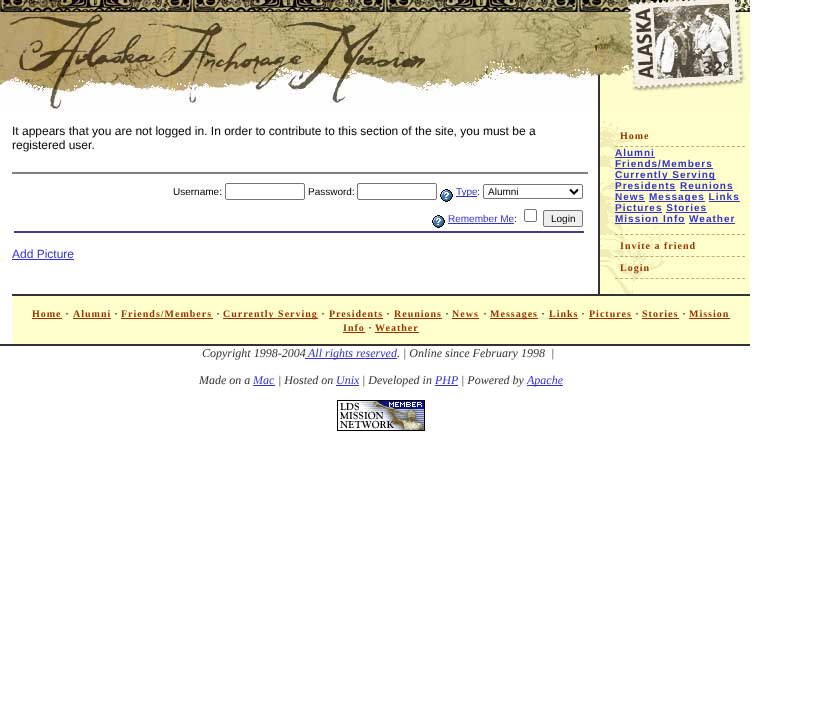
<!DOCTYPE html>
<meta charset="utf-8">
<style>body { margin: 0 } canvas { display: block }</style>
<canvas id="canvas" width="831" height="723"></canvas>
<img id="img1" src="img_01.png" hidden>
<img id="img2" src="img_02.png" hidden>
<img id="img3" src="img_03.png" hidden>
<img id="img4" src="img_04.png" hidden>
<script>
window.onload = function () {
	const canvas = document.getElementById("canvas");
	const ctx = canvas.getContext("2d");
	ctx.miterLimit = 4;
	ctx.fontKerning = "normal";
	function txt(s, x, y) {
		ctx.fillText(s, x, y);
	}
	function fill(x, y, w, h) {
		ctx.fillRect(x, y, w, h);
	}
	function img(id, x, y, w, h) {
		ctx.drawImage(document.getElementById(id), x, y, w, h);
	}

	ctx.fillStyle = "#FFFFFF";
	fill(0, 0, 831, 723);
	img("img1", 0, 0, 750, 110);
	ctx.fillStyle = "#808080";
	fill(12, 172, 576, 2);
	ctx.beginPath();
	ctx.roundRect(225.5, 183.5, 79, 16, 1.5);
	ctx.strokeStyle = "#767676";
	ctx.stroke();
	ctx.beginPath();
	ctx.roundRect(357.5, 183.5, 79, 16, 1.5);
	ctx.stroke();
	img("img2", 440, 189, 13, 13);
	ctx.fillStyle = "#3333CC";
	fill(456, 196, 21, 1);
	ctx.beginPath();
	ctx.roundRect(483.5, 184.5, 99, 14, 1.5);
	ctx.stroke();
	ctx.beginPath();
	ctx.moveTo(570, 189.5);
	ctx.lineTo(574, 193.5);
	ctx.lineTo(578, 189.5);
	ctx.strokeStyle = "#000000";
	ctx.lineWidth = 2;
	ctx.stroke();
	img("img2", 432, 215, 13, 13);
	fill(448, 223, 66, 1);
	ctx.beginPath();
	ctx.roundRect(524.5, 209.5, 12, 12, 1.5);
	ctx.strokeStyle = "#767676";
	ctx.lineWidth = 1;
	ctx.stroke();
	ctx.fillStyle = "#EFEFEF";
	ctx.beginPath();
	ctx.roundRect(543.5, 210.5, 39, 16, 1.5);
	ctx.fill();
	ctx.stroke();
	ctx.fillStyle = "#483D8B";
	fill(14, 231, 570, 2);
	ctx.fillStyle = "#3333CC";
	fill(12, 259, 62, 1);
	ctx.fillStyle = "#333333";
	fill(598, 110, 2, 184);
	ctx.fillStyle = "#FFFFCC";
	fill(600, 110, 150, 184);
	img("img3", 600, 121, 65, 173);
	ctx.beginPath();
	ctx.moveTo(615, 146.5);
	ctx.lineTo(745, 146.5);
	ctx.strokeStyle = "#BEAF78";
	ctx.setLineDash([3, 2.08]);
	ctx.stroke();
	ctx.fillStyle = "#3333CC";
	fill(615, 157, 40, 1);
	fill(615, 168, 98, 1);
	fill(615, 179, 101, 1);
	fill(615, 190, 61, 1);
	fill(680, 190, 53, 1);
	fill(615, 201, 30, 1);
	fill(649, 201, 56, 1);
	fill(709, 201, 31, 1);
	fill(615, 212, 47, 1);
	fill(666, 212, 41, 1);
	fill(615, 223, 70, 1);
	fill(689, 223, 46, 1);
	ctx.beginPath();
	ctx.moveTo(615, 234.5);
	ctx.lineTo(745, 234.5);
	ctx.stroke();
	ctx.beginPath();
	ctx.moveTo(615, 256.5);
	ctx.lineTo(745, 256.5);
	ctx.stroke();
	ctx.beginPath();
	ctx.moveTo(615, 278.5);
	ctx.lineTo(745, 278.5);
	ctx.stroke();
	ctx.fillStyle = "#333333";
	fill(12, 294, 738, 2);
	ctx.fillStyle = "#FFFFCC";
	fill(12, 296, 738, 48);
	ctx.fillStyle = "#993300";
	fill(32, 318, 30, 1);
	fill(73, 318, 38, 1);
	fill(121, 318, 92, 1);
	fill(223, 318, 95, 1);
	fill(329, 318, 54, 1);
	fill(394, 318, 48, 1);
	fill(452, 318, 27, 1);
	fill(490, 318, 48, 1);
	fill(549, 318, 29, 1);
	fill(589, 318, 43, 1);
	fill(642, 318, 37, 1);
	fill(689, 318, 41, 1);
	fill(343, 332, 22, 1);
	fill(375, 332, 44, 1);
	ctx.fillStyle = "#333333";
	fill(0, 344, 750, 2);
	ctx.fillStyle = "#3333CC";
	fill(253, 385, 22, 1);
	fill(336, 385, 23, 1);
	fill(435, 385, 23, 1);
	fill(527, 385, 36, 1);
	img("img4", 337, 400, 88, 31);
	ctx.font = "12px Liberation Sans";
	ctx.fillStyle = "#000000";
	txt("It appears that you are not logged in. In order to contribute to this section of the site, you must be a", 12, 135);
	txt("registered user.", 12, 149);
	ctx.font = "10px Liberation Sans";
	txt("Username:", 173, 195);
	txt("Password:", 308, 195);
	ctx.fillStyle = "#3333CC";
	txt("Type", 456, 195);
	ctx.fillStyle = "#000000";
	txt(":", 477, 195);
	txt("Alumni", 488, 195);
	ctx.fillStyle = "#3333CC";
	txt("Remember Me", 448, 222);
	ctx.fillStyle = "#000000";
	txt(":", 514, 222);
	txt("Login", 551, 222);
	ctx.font = "12px Liberation Sans";
	ctx.fillStyle = "#3333CC";
	txt("Add Picture", 12, 258);
	ctx.letterSpacing = "1px";
	ctx.font = "bold 10px Liberation Serif";
	ctx.fillStyle = "#993300";
	txt("Home", 620, 139);
	ctx.font = "bold 10px Liberation Sans";
	ctx.fillStyle = "#3333CC";
	txt("Alumni", 615, 156);
	txt("Friends/Members", 615, 167);
	txt("Currently Serving", 615, 178);
	txt("Presidents Reunions", 615, 189);
	txt("News", 615, 200);
	txt("Messages Links", 649, 200);
	txt("Pictures Stories", 615, 211);
	txt("Mission Info Weather", 615, 222);
	ctx.font = "bold 10px Liberation Serif";
	ctx.fillStyle = "#993300";
	txt("Invite a friend", 620, 249);
	txt("Login", 620, 271);
	txt("Home", 32, 317);
	ctx.letterSpacing = "0px";
	ctx.font = "12px Liberation Sans";
	ctx.fillStyle = "#000000";
	txt("·", 65, 317);
	ctx.letterSpacing = "1px";
	ctx.font = "bold 10px Liberation Serif";
	ctx.fillStyle = "#993300";
	txt("Alumni", 73, 317);
	ctx.letterSpacing = "0px";
	ctx.font = "12px Liberation Sans";
	ctx.fillStyle = "#000000";
	txt("·", 114, 317);
	ctx.letterSpacing = "1px";
	ctx.font = "bold 10px Liberation Serif";
	ctx.fillStyle = "#993300";
	txt("Friends/Members", 121, 317);
	ctx.letterSpacing = "0px";
	ctx.font = "12px Liberation Sans";
	ctx.fillStyle = "#000000";
	txt("·", 216, 317);
	ctx.letterSpacing = "1px";
	ctx.font = "bold 10px Liberation Serif";
	ctx.fillStyle = "#993300";
	txt("Currently Serving", 223, 317);
	ctx.letterSpacing = "0px";
	ctx.font = "12px Liberation Sans";
	ctx.fillStyle = "#000000";
	txt("·", 321, 317);
	ctx.letterSpacing = "1px";
	ctx.font = "bold 10px Liberation Serif";
	ctx.fillStyle = "#993300";
	txt("Presidents", 329, 317);
	ctx.letterSpacing = "0px";
	ctx.font = "12px Liberation Sans";
	ctx.fillStyle = "#000000";
	txt("·", 386, 317);
	ctx.letterSpacing = "1px";
	ctx.font = "bold 10px Liberation Serif";
	ctx.fillStyle = "#993300";
	txt("Reunions", 394, 317);
	ctx.letterSpacing = "0px";
	ctx.font = "12px Liberation Sans";
	ctx.fillStyle = "#000000";
	txt("·", 445, 317);
	ctx.letterSpacing = "1px";
	ctx.font = "bold 10px Liberation Serif";
	ctx.fillStyle = "#993300";
	txt("News", 452, 317);
	ctx.letterSpacing = "0px";
	ctx.font = "12px Liberation Sans";
	ctx.fillStyle = "#000000";
	txt("·", 483, 317);
	ctx.letterSpacing = "1px";
	ctx.font = "bold 10px Liberation Serif";
	ctx.fillStyle = "#993300";
	txt("Messages", 490, 317);
	ctx.letterSpacing = "0px";
	ctx.font = "12px Liberation Sans";
	ctx.fillStyle = "#000000";
	txt("·", 541, 317);
	ctx.letterSpacing = "1px";
	ctx.font = "bold 10px Liberation Serif";
	ctx.fillStyle = "#993300";
	txt("Links", 549, 317);
	ctx.letterSpacing = "0px";
	ctx.font = "12px Liberation Sans";
	ctx.fillStyle = "#000000";
	txt("·", 581, 317);
	ctx.letterSpacing = "1px";
	ctx.font = "bold 10px Liberation Serif";
	ctx.fillStyle = "#993300";
	txt("Pictures", 589, 317);
	ctx.letterSpacing = "0px";
	ctx.font = "12px Liberation Sans";
	ctx.fillStyle = "#000000";
	txt("·", 635, 317);
	ctx.letterSpacing = "1px";
	ctx.font = "bold 10px Liberation Serif";
	ctx.fillStyle = "#993300";
	txt("Stories", 642, 317);
	ctx.letterSpacing = "0px";
	ctx.font = "12px Liberation Sans";
	ctx.fillStyle = "#000000";
	txt("·", 682, 317);
	ctx.letterSpacing = "1px";
	ctx.font = "bold 10px Liberation Serif";
	ctx.fillStyle = "#993300";
	txt("Mission", 689, 317);
	txt("Info", 343, 331);
	ctx.letterSpacing = "0px";
	ctx.font = "12px Liberation Sans";
	ctx.fillStyle = "#000000";
	txt("·", 368, 331);
	ctx.letterSpacing = "1px";
	ctx.font = "bold 10px Liberation Serif";
	ctx.fillStyle = "#993300";
	txt("Weather", 375, 331);
	ctx.letterSpacing = "0px";
	ctx.font = "italic 12px Liberation Serif";
	ctx.fillStyle = "#333333";
	txt("Copyright 1998-2004", 202, 357);
	ctx.fillStyle = "#3333CC";
	fill(305, 358, 92, 1);
	txt("All rights reserved", 308, 357);
	ctx.fillStyle = "#333333";
	txt(". | Online since February 1998  |", 397, 357);
	txt("Made on a", 199, 384);
	ctx.fillStyle = "#3333CC";
	txt("Mac", 253, 384);
	ctx.fillStyle = "#333333";
	txt("| Hosted on", 278, 384);
	ctx.fillStyle = "#3333CC";
	txt("Unix", 336, 384);
	ctx.fillStyle = "#333333";
	txt("| Developed in", 362, 384);
	ctx.fillStyle = "#3333CC";
	txt("PHP", 435, 384);
	ctx.fillStyle = "#333333";
	txt("| Powered by", 461, 384);
	ctx.fillStyle = "#3333CC";
	txt("Apache", 527, 384);
};
</script>
